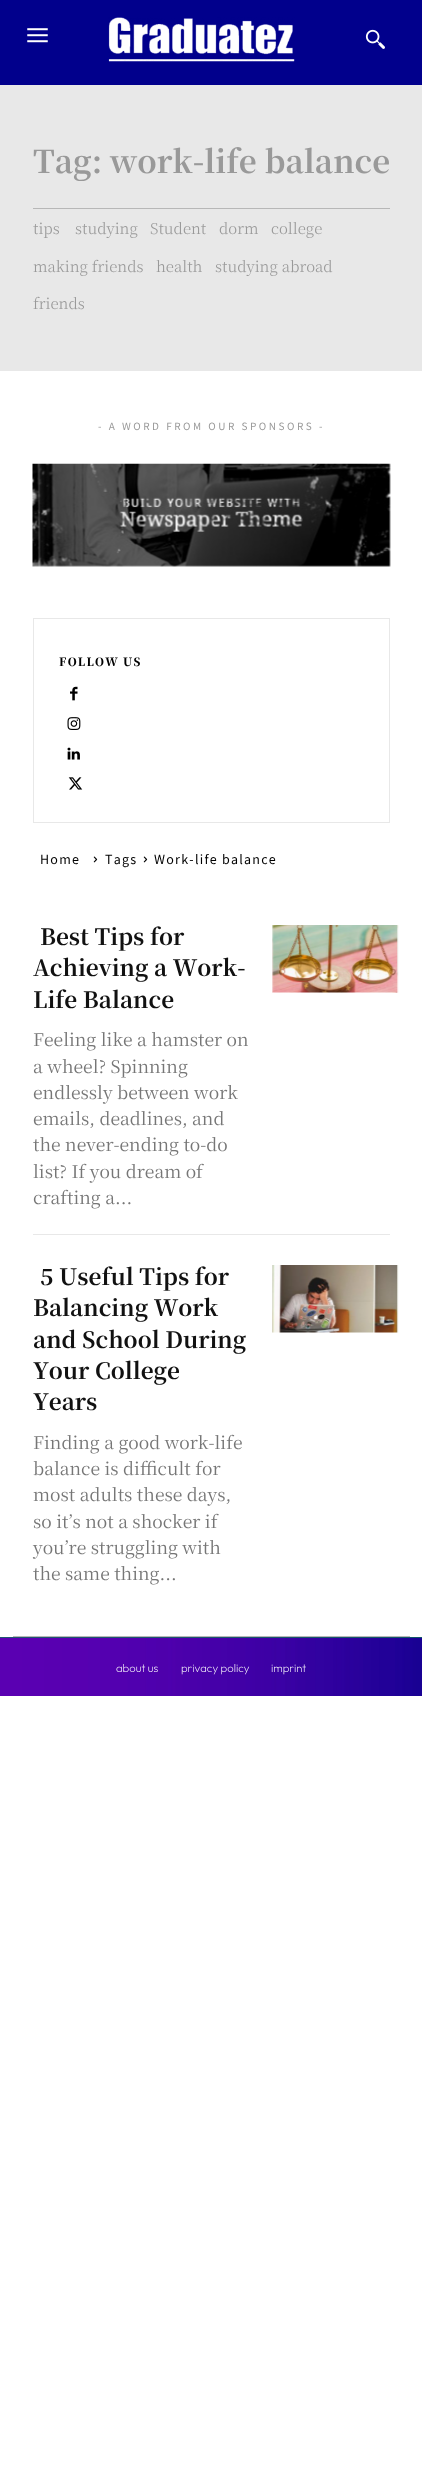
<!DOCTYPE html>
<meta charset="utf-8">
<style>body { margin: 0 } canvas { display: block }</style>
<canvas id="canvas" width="422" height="2486"></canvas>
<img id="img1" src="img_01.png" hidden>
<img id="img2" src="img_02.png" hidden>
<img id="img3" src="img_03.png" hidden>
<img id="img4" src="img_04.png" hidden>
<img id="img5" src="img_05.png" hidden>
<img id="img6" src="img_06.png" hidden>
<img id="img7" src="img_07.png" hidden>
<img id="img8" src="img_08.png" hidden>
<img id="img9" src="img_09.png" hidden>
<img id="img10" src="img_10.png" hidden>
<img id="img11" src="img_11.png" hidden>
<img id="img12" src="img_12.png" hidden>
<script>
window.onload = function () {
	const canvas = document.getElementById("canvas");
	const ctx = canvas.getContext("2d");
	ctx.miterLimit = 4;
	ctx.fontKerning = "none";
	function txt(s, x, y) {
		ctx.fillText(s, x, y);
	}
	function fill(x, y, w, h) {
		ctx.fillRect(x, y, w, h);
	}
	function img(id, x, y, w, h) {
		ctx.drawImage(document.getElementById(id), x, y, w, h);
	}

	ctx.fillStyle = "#FFFFFF";
	fill(0, 0, 422, 2486);
	ctx.fillStyle = "#01008C";
	fill(0, 0, 422, 85);
	img("img1", 27, 28, 21, 15);
	img("img2", 108, 17, 187, 45);
	img("img3", 365, 29, 20, 20);
	ctx.fillStyle = "#E8E8E8";
	fill(0, 85, 422, 286);
	ctx.fillStyle = "#B7B7B7";
	fill(33, 208, 357, 1);
	img("img4", 32, 463, 359, 104);
	ctx.strokeStyle = "#E8E8E8";
	ctx.strokeRect(33.5, 618.5, 356, 204);
	img("img5", 70, 686, 8, 15);
	img("img6", 67, 717, 14, 13);
	img("img7", 67, 747, 13, 13);
	img("img8", 68, 777, 15, 13);
	img("img9", 93, 856, 5, 7);
	img("img9", 143, 856, 5, 7);
	img("img10", 272, 925, 127, 68);
	ctx.fillStyle = "#E8E8E8";
	fill(33, 1234, 357, 1);
	img("img11", 272, 1265, 127, 68);
	ctx.fillStyle = "#B7B7B7";
	fill(13, 1636, 397, 1);
	ctx.fillStyle = "#0E725B";
	fill(0, 1637, 422, 1);
	img("img12", 0, 1637, 422, 59);
	ctx.font = "bold 31.25px Noto Serif JP";
	ctx.fillStyle = "#999999";
	txt("Tag: work-life balance", 33, 173);
	ctx.font = "300 15px Noto Serif JP";
	txt("tips", 33, 234);
	txt("studying", 75, 234);
	txt("Student", 150, 234);
	txt("dorm", 219, 234);
	txt("college", 271, 234);
	txt("making friends", 33, 272);
	txt("health", 156, 272);
	txt("studying abroad", 215, 272);
	txt("friends", 33, 309);
	ctx.letterSpacing = "2.5px";
	ctx.font = "100 10px Noto Sans JP";
	txt("- A WORD FROM OUR SPONSORS -", 98, 430);
	ctx.letterSpacing = "1.25px";
	ctx.font = "900 11.25px Noto Serif JP";
	ctx.fillStyle = "#000000";
	txt("FOLLOW US", 59, 666);
	ctx.font = "100 12.5px Noto Sans JP";
	txt("Home", 40, 864);
	txt("Tags", 105, 864);
	txt("Work-life balance", 154, 864);
	ctx.letterSpacing = "0px";
	ctx.font = "bold 22.5px Noto Serif JP";
	ctx.fillStyle = "#111111";
	txt("Best Tips for", 40, 945);
	txt("Achieving a Work-", 33, 976);
	txt("Life Balance", 33, 1008);
	ctx.font = "17.5px Noto Serif JP";
	ctx.fillStyle = "#767676";
	txt("Feeling like a hamster on", 33, 1046);
	txt("a wheel? Spinning", 33, 1073);
	txt("endlessly between work", 33, 1099);
	txt("emails, deadlines, and", 33, 1125);
	txt("the never-ending to-do", 33, 1151);
	txt("list? If you dream of", 33, 1178);
	txt("crafting a...", 33, 1204);
	ctx.font = "bold 22.5px Noto Serif JP";
	ctx.fillStyle = "#111111";
	txt("5 Useful Tips for", 40, 1285);
	txt("Balancing Work", 33, 1316);
	txt("and School During", 33, 1348);
	txt("Your College", 33, 1379);
	txt("Years", 33, 1410);
	ctx.font = "17.5px Noto Serif JP";
	ctx.fillStyle = "#767676";
	txt("Finding a good work-life", 33, 1449);
	txt("balance is difficult for", 33, 1475);
	txt("most adults these days,", 33, 1501);
	txt("so it’s not a shocker if", 33, 1528);
	txt("you’re struggling with", 33, 1554);
	txt("the same thing...", 33, 1580);
	ctx.font = "200 11.25px Outfit";
	ctx.fillStyle = "#FFFFFF";
	txt("about us", 116, 1672);
	txt("privacy policy", 181, 1672);
	txt("imprint", 271, 1672);
};
</script>
